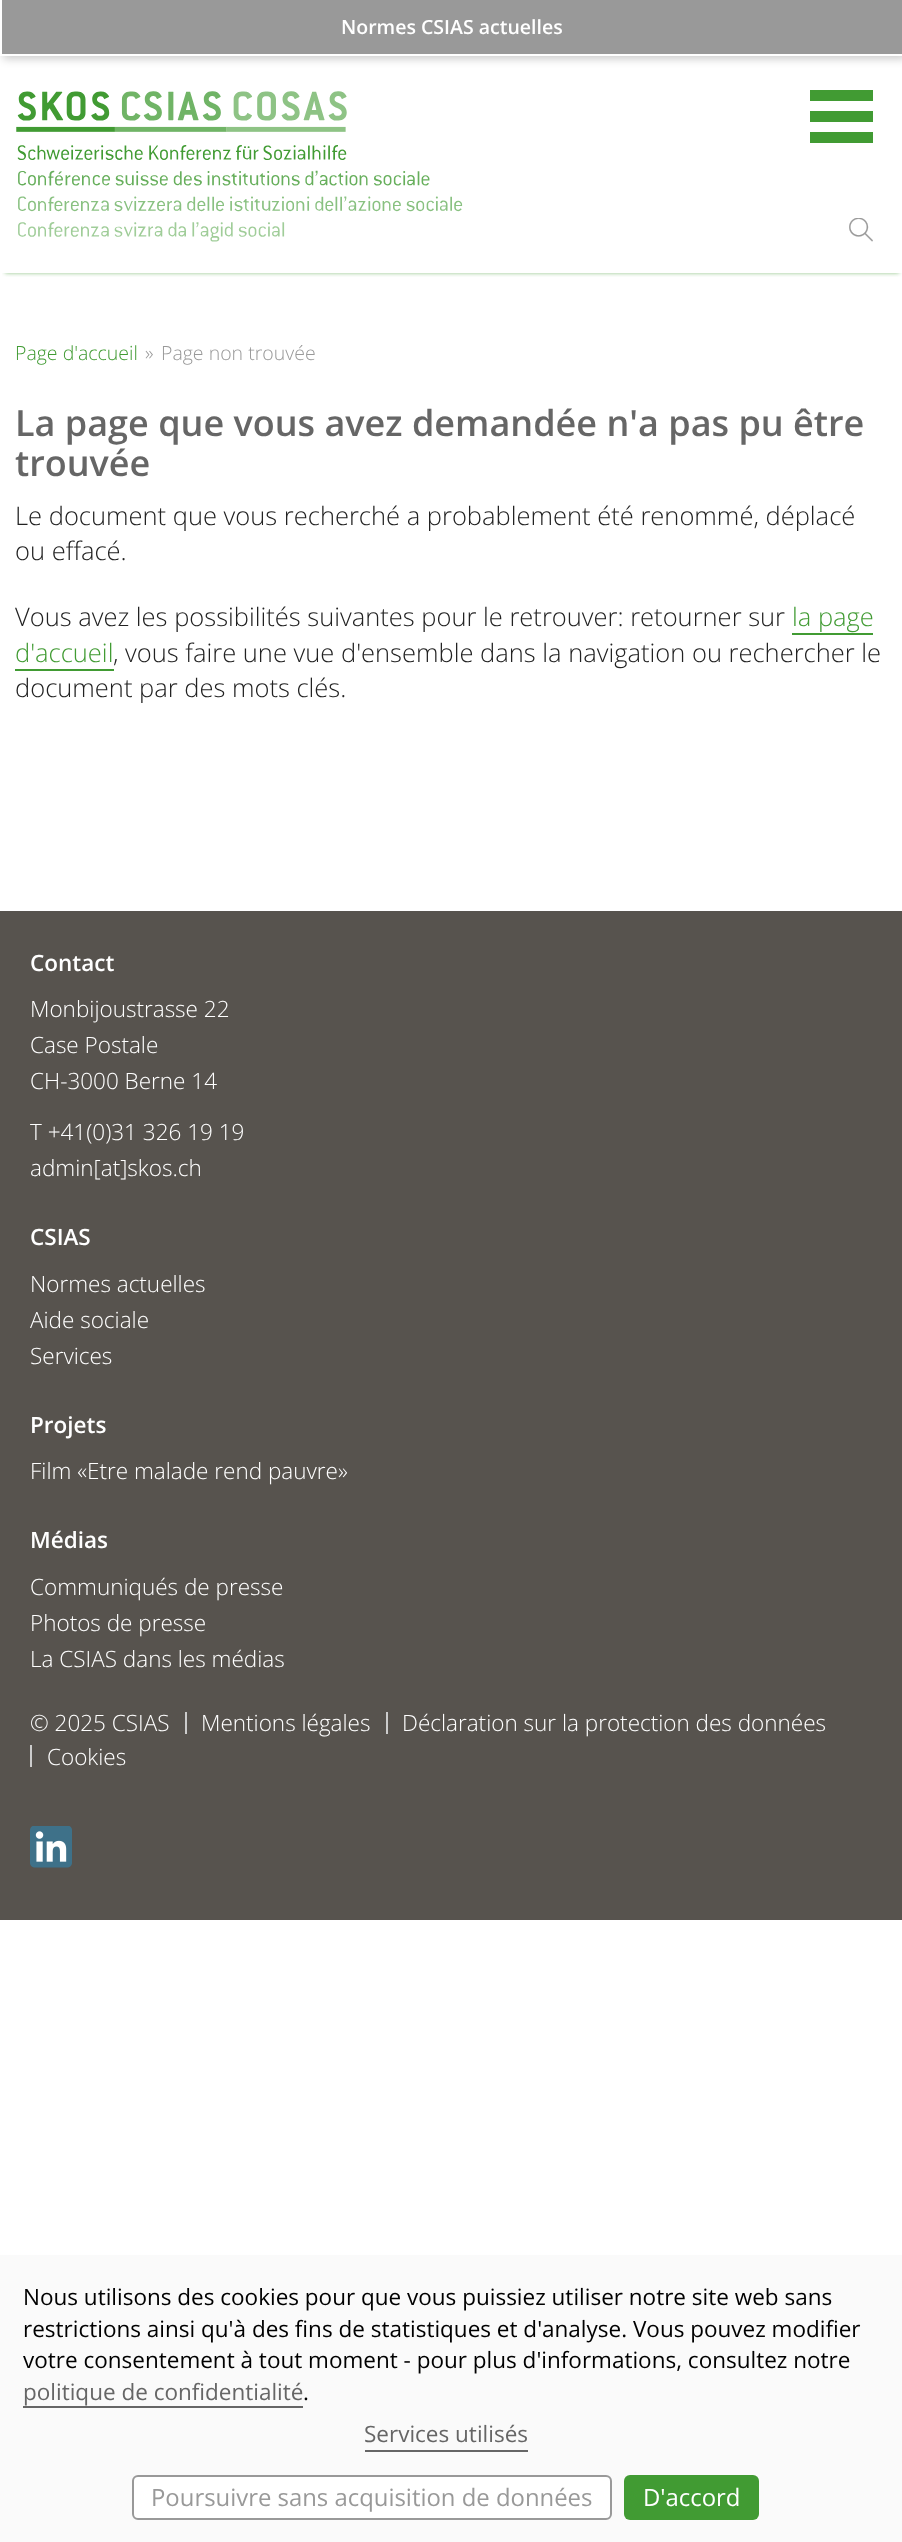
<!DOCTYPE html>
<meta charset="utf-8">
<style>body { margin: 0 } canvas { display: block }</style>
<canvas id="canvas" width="902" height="2542"></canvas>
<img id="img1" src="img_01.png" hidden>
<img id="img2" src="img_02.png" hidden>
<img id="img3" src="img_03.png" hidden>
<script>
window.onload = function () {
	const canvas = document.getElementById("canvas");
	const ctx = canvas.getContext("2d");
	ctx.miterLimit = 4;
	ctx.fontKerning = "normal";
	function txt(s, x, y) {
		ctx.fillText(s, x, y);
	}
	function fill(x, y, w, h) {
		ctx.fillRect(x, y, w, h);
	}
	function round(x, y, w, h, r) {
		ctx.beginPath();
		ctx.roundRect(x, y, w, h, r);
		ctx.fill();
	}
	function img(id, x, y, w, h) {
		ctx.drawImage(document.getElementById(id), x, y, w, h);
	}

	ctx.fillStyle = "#FFFFFF";
	fill(0, 0, 902, 2542);
	ctx.fillStyle = "rgba(0, 0, 0, 0.2)";
	ctx.filter = "blur(4.5px)";
	ctx.beginPath();
	ctx.rect(3, 3, 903, 56);
	ctx.fill();
	ctx.filter = "none";
	ctx.fillStyle = "#999999";
	fill(2, 0, 900, 54);
	ctx.fillStyle = "#FFFFFF";
	fill(0, 54, 902, 2);
	fill(0, 0, 2, 56);
	ctx.fillStyle = "#419B33";
	fill(810, 90, 63, 11);
	fill(810, 111, 63, 11);
	fill(810, 132, 63, 11);
	img("img1", 16, 91, 447, 151);
	img("img2", 849, 218, 24, 24);
	ctx.save();
	ctx.beginPath();
	ctx.rect(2, 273, 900, 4);
	ctx.clip();
	ctx.fillStyle = "#8EC385";
	ctx.filter = "blur(2px)";
	ctx.beginPath();
	ctx.rect(5, 267, 894, 6);
	ctx.fill();
	ctx.filter = "none";
	ctx.restore();
	fill(792, 633, 81, 2);
	fill(15, 669, 99, 2);
	ctx.fillStyle = "#57534E";
	fill(0, 911, 902, 1009);
	ctx.fillStyle = "#CCCCCC";
	fill(185, 1712, 2, 22);
	fill(386, 1712, 2, 22);
	fill(30, 1745, 2, 22);
	img("img3", 30, 1826, 42, 42);
	ctx.fillStyle = "#FAFAFA";
	fill(0, 2255, 902, 287);
	ctx.fillStyle = "#666666";
	fill(23, 2406, 280, 2);
	fill(365, 2450, 163, 2);
	ctx.fillStyle = "#FFFFFF";
	ctx.beginPath();
	ctx.roundRect(133, 2476, 478, 43, 5);
	ctx.fill();
	ctx.strokeStyle = "#999999";
	ctx.lineWidth = 2;
	ctx.stroke();
	ctx.fillStyle = "#419B33";
	round(624, 2475, 135, 45, 6);
	ctx.font = "600 19.5px Open Sans";
	ctx.fillStyle = "#FFFFFF";
	txt("Normes CSIAS actuelles", 341, 34);
	ctx.font = "300 19.5px Open Sans";
	ctx.fillStyle = "#419B33";
	txt("Page d'accueil", 15, 360);
	ctx.fillStyle = "#999999";
	txt("»", 145, 360);
	txt("Page non trouvée", 161, 360);
	ctx.font = "600 36px Open Sans";
	ctx.fillStyle = "#666666";
	txt("La page que vous avez demandée n'a pas pu être", 15, 436);
	txt("trouvée", 15, 476);
	ctx.font = "300 25.5px Open Sans";
	ctx.fillStyle = "#222222";
	txt("Le document que vous recherché a probablement été renommé, déplacé", 15, 525);
	txt("ou effacé.", 15, 560);
	txt("Vous avez les possibilités suivantes pour le retrouver: retourner sur", 15, 626);
	ctx.fillStyle = "#419B33";
	txt("la page", 792, 626);
	txt("d'accueil", 15, 662);
	ctx.fillStyle = "#222222";
	txt(", vous faire une vue d'ensemble dans la navigation ou rechercher le", 113, 662);
	txt("document par des mots clés.", 15, 697);
	ctx.font = "600 22.5px Open Sans";
	ctx.fillStyle = "#FFFFFF";
	txt("Contact", 30, 971);
	ctx.font = "300 22.5px Open Sans";
	txt("Monbijoustrasse 22", 30, 1017);
	txt("Case Postale", 30, 1053);
	txt("CH-3000 Berne 14", 30, 1089);
	txt("T +41(0)31 326 19 19", 30, 1140);
	txt("admin[at]skos.ch", 30, 1176);
	ctx.font = "600 22.5px Open Sans";
	txt("CSIAS", 30, 1245);
	ctx.font = "300 22.5px Open Sans";
	txt("Normes actuelles", 30, 1292);
	txt("Aide sociale", 30, 1328);
	txt("Services", 30, 1364);
	ctx.font = "600 22.5px Open Sans";
	txt("Projets", 30, 1433);
	ctx.font = "300 22.5px Open Sans";
	txt("Film «Etre malade rend pauvre»", 30, 1479);
	ctx.font = "600 22.5px Open Sans";
	txt("Médias", 30, 1548);
	ctx.font = "300 22.5px Open Sans";
	txt("Communiqués de presse", 30, 1595);
	txt("Photos de presse", 30, 1631);
	txt("La CSIAS dans les médias", 30, 1667);
	txt("© 2025 CSIAS", 30, 1731);
	txt("Mentions légales", 201, 1731);
	txt("Déclaration sur la protection des données", 402, 1731);
	txt("Cookies", 47, 1765);
	ctx.font = "22.5px Open Sans";
	ctx.fillStyle = "#000000";
	txt("Nous utilisons des cookies pour que vous puissiez utiliser notre site web sans", 23, 2305);
	txt("restrictions ainsi qu'à des fins de statistiques et d'analyse. Vous pouvez modifier", 23, 2337);
	txt("votre consentement à tout moment - pour plus d'informations, consultez notre", 23, 2368);
	ctx.fillStyle = "#666666";
	txt("politique de confidentialité", 23, 2400);
	ctx.fillStyle = "#000000";
	txt(".", 303, 2400);
	ctx.fillStyle = "#666666";
	txt("Services utilisés", 364, 2442);
	ctx.font = "23.9px Open Sans";
	ctx.fillStyle = "#999999";
	txt("Poursuivre sans acquisition de données", 151, 2506);
	ctx.fillStyle = "#FFFFFF";
	txt("D'accord", 643, 2506);
};
</script>
